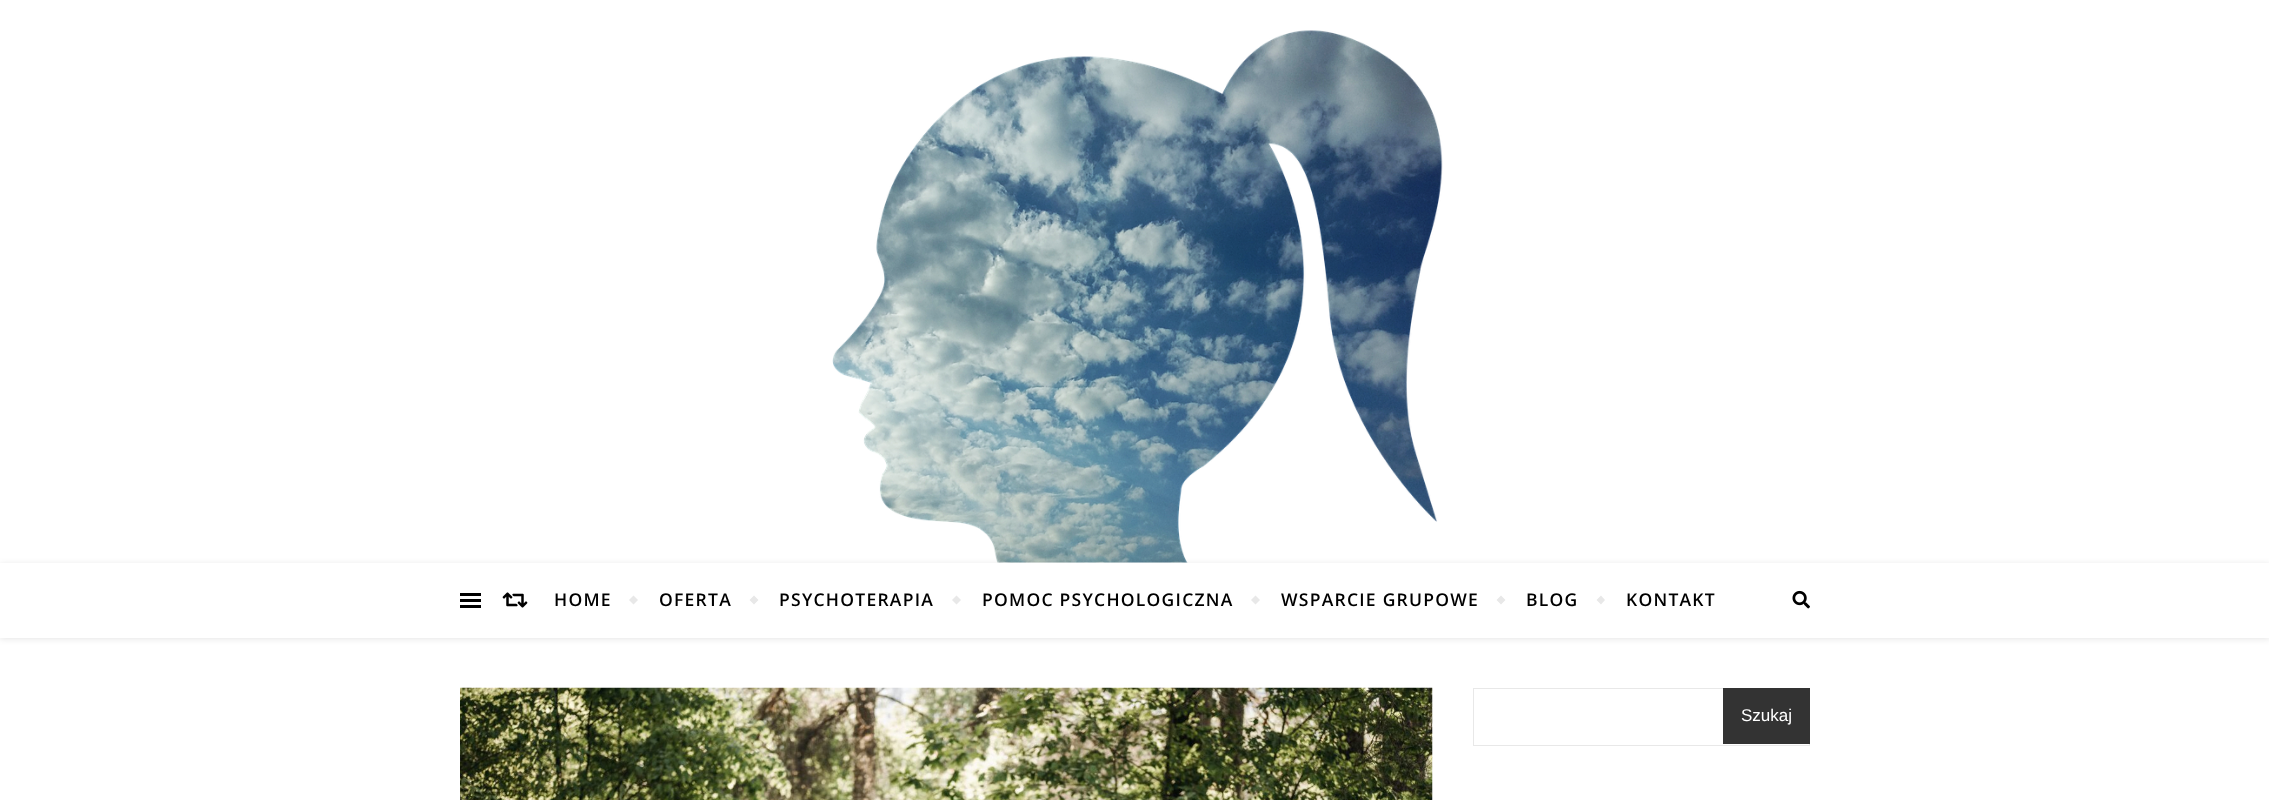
<!DOCTYPE html>
<meta charset="utf-8">
<style>body { margin: 0 } canvas { display: block }</style>
<canvas id="canvas" width="2269" height="800"></canvas>
<img id="img1" src="img_01.png" hidden>
<img id="img2" src="img_02.png" hidden>
<img id="img3" src="img_03.png" hidden>
<img id="img4" src="img_04.png" hidden>
<script>
window.onload = function () {
	const canvas = document.getElementById("canvas");
	const ctx = canvas.getContext("2d");
	ctx.miterLimit = 4;
	ctx.fontKerning = "normal";
	function txt(s, x, y) {
		ctx.fillText(s, x, y);
	}
	function fill(x, y, w, h) {
		ctx.fillRect(x, y, w, h);
	}
	function img(id, x, y, w, h) {
		ctx.drawImage(document.getElementById(id), x, y, w, h);
	}

	ctx.fillStyle = "#FFFFFF";
	fill(0, 0, 2269, 800);
	img("img1", 832, 30, 611, 533);
	ctx.fillStyle = "rgba(0, 0, 0, 0.1)";
	ctx.filter = "blur(3px)";
	ctx.beginPath();
	ctx.rect(0, 564, 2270, 75);
	ctx.fill();
	ctx.filter = "none";
	ctx.fillStyle = "#FFFFFF";
	fill(0, 563, 2269, 75);
	ctx.fillStyle = "#000000";
	fill(460, 593, 21, 3);
	fill(460, 599, 21, 3);
	fill(460, 605, 21, 3);
	img("img2", 502, 592, 26, 16);
	ctx.fillStyle = "#E8E8E8";
	ctx.beginPath();
	ctx.moveTo(629, 600);
	ctx.lineTo(633.5, 595.5);
	ctx.lineTo(638, 600);
	ctx.lineTo(633.5, 604.5);
	ctx.closePath();
	ctx.fill();
	ctx.beginPath();
	ctx.moveTo(749.5, 600);
	ctx.lineTo(754, 595.5);
	ctx.lineTo(758.5, 600);
	ctx.lineTo(754, 604.5);
	ctx.closePath();
	ctx.fill();
	ctx.beginPath();
	ctx.moveTo(952, 600);
	ctx.lineTo(956.5, 595.5);
	ctx.lineTo(961, 600);
	ctx.lineTo(956.5, 604.5);
	ctx.closePath();
	ctx.fill();
	ctx.beginPath();
	ctx.moveTo(1251, 600);
	ctx.lineTo(1255.5, 595.5);
	ctx.lineTo(1260, 600);
	ctx.lineTo(1255.5, 604.5);
	ctx.closePath();
	ctx.fill();
	ctx.beginPath();
	ctx.moveTo(1496.5, 600);
	ctx.lineTo(1501, 595.5);
	ctx.lineTo(1505.5, 600);
	ctx.lineTo(1501, 604.5);
	ctx.closePath();
	ctx.fill();
	ctx.beginPath();
	ctx.moveTo(1596.5, 600);
	ctx.lineTo(1601, 595.5);
	ctx.lineTo(1605, 600);
	ctx.lineTo(1601, 604.5);
	ctx.closePath();
	ctx.fill();
	img("img3", 1792, 590, 18, 19);
	img("img4", 460, 687, 973, 113);
	ctx.strokeStyle = "#E8E8E8";
	ctx.strokeRect(1473.5, 688.5, 336, 57);
	ctx.fillStyle = "#333333";
	fill(1723, 688, 87, 56);
	ctx.letterSpacing = "1.25px";
	ctx.font = "600 17.5px Open Sans";
	ctx.fillStyle = "#000000";
	txt("HOME", 554, 606);
	txt("OFERTA", 659, 606);
	txt("PSYCHOTERAPIA", 779, 606);
	txt("POMOC PSYCHOLOGICZNA", 982, 606);
	txt("WSPARCIE GRUPOWE", 1281, 606);
	txt("BLOG", 1526, 606);
	txt("KONTAKT", 1626, 606);
	ctx.letterSpacing = "0px";
	ctx.font = "17px Liberation Sans";
	ctx.fillStyle = "#FFFFFF";
	txt("Szukaj", 1741, 721);
};
</script>
